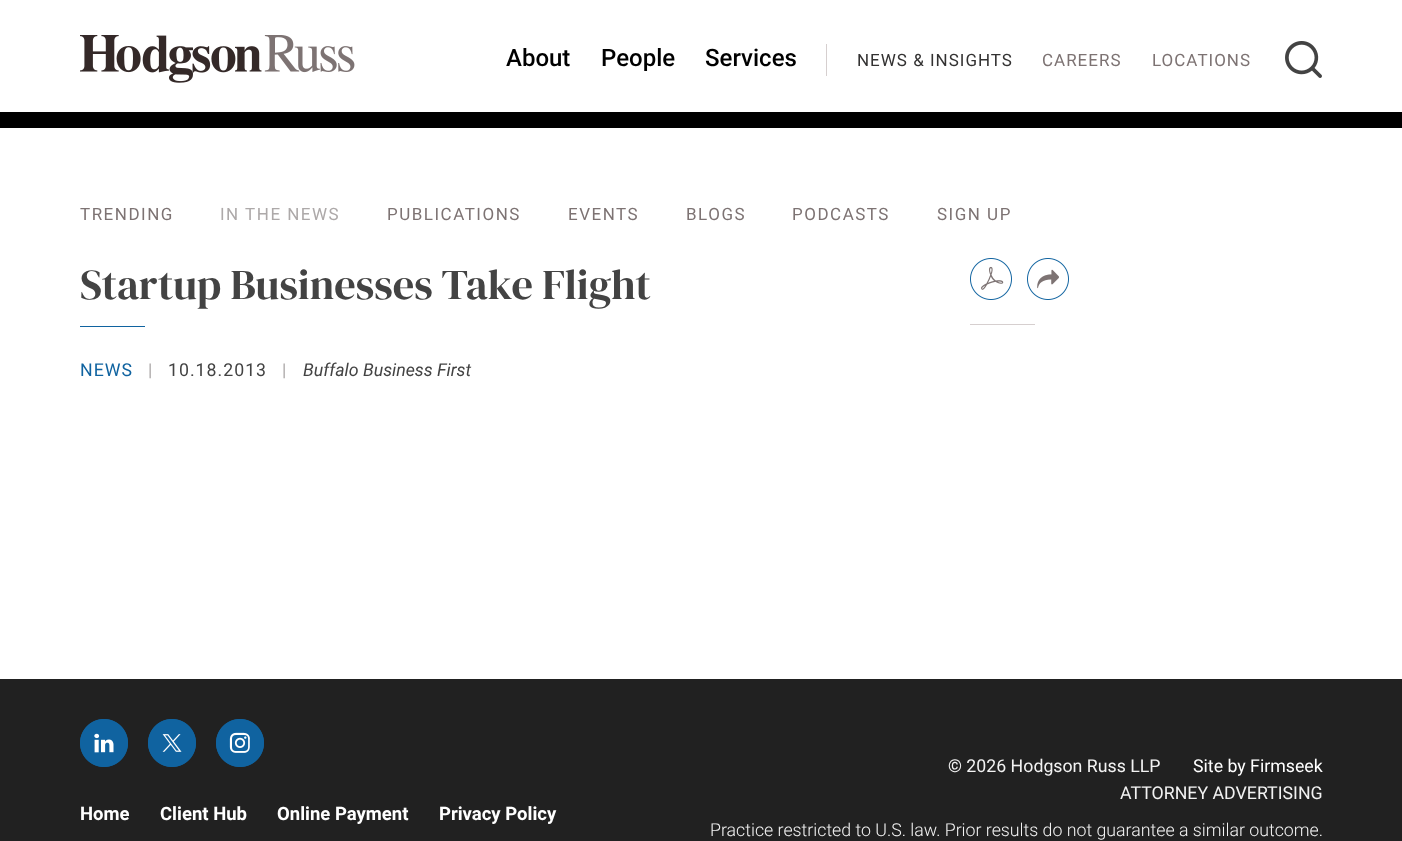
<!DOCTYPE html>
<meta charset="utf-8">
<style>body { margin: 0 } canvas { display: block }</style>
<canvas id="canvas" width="1402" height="841"></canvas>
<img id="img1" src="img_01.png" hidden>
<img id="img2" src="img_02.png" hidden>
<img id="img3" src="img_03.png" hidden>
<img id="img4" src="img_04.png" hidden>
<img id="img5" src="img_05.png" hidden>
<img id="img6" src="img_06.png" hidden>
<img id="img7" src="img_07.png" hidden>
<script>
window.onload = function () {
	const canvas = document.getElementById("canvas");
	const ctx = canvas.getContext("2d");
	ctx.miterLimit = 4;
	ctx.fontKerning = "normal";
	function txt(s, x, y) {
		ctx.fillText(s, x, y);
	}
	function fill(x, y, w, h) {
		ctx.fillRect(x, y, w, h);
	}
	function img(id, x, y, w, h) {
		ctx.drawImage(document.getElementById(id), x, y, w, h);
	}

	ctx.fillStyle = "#FFFFFF";
	fill(0, 0, 1402, 841);
	img("img1", 80, 35, 275, 48);
	ctx.fillStyle = "#D6CFCF";
	fill(826, 44, 1, 32);
	img("img2", 1285, 41, 37, 37);
	ctx.fillStyle = "#000000";
	fill(0, 112, 1402, 16);
	ctx.fillStyle = "#1063A0";
	fill(80, 326, 65, 1);
	img("img3", 970, 258, 42, 42);
	img("img4", 1027, 258, 42, 42);
	ctx.fillStyle = "#D6CFCF";
	fill(970, 324, 65, 1);
	ctx.fillStyle = "#212121";
	fill(0, 679, 1402, 162);
	img("img5", 80, 719, 48, 48);
	img("img6", 148, 719, 48, 48);
	img("img7", 216, 719, 48, 48);
	ctx.font = "500 24px Roboto";
	ctx.fillStyle = "#000000";
	txt("About", 506, 66);
	txt("People", 601, 66);
	txt("Services", 705, 66);
	ctx.letterSpacing = "1px";
	ctx.font = "17px Roboto";
	ctx.fillStyle = "#333232";
	txt("NEWS & INSIGHTS", 857, 66);
	ctx.fillStyle = "#7D7373";
	txt("CAREERS", 1042, 66);
	txt("LOCATIONS", 1152, 66);
	ctx.letterSpacing = "1.5px";
	txt("TRENDING", 80, 220);
	ctx.fillStyle = "#ADA9A9";
	txt("IN THE NEWS", 220, 220);
	ctx.fillStyle = "#7D7373";
	txt("PUBLICATIONS", 387, 220);
	txt("EVENTS", 568, 220);
	txt("BLOGS", 686, 220);
	txt("PODCASTS", 792, 220);
	txt("SIGN UP", 937, 220);
	ctx.letterSpacing = "0px";
	ctx.font = "42.4px DM Serif Display";
	ctx.fillStyle = "#434343";
	txt("Startup Businesses Take Flight", 80, 299);
	ctx.letterSpacing = "1px";
	ctx.font = "17.75px Roboto";
	ctx.fillStyle = "#1063A0";
	txt("NEWS", 80, 376);
	ctx.fillStyle = "#ADA9A9";
	txt("|", 148, 376);
	ctx.fillStyle = "#434343";
	txt("10.18.2013", 168, 376);
	ctx.fillStyle = "#ADA9A9";
	txt("|", 282, 376);
	ctx.letterSpacing = "0px";
	ctx.font = "italic 17.75px Roboto";
	ctx.fillStyle = "#434343";
	txt("Buffalo Business First", 303, 376);
	ctx.font = "bold 18.5px Roboto";
	ctx.fillStyle = "#FFFFFF";
	txt("Home", 80, 820);
	txt("Client Hub", 160, 820);
	txt("Online Payment", 277, 820);
	txt("Privacy Policy", 439, 820);
	ctx.font = "17.75px Roboto";
	ctx.fillStyle = "#F2F2F2";
	txt("© 2026 Hodgson Russ LLP", 948, 772);
	ctx.fillStyle = "#FFFFFF";
	txt("Site by Firmseek", 1193, 772);
	ctx.fillStyle = "#F2F2F2";
	txt("ATTORNEY ADVERTISING", 1120, 799);
	ctx.font = "300 17.75px Roboto";
	txt("Practice restricted to U.S. law. Prior results do not guarantee a similar outcome.", 710, 836);
};
</script>
